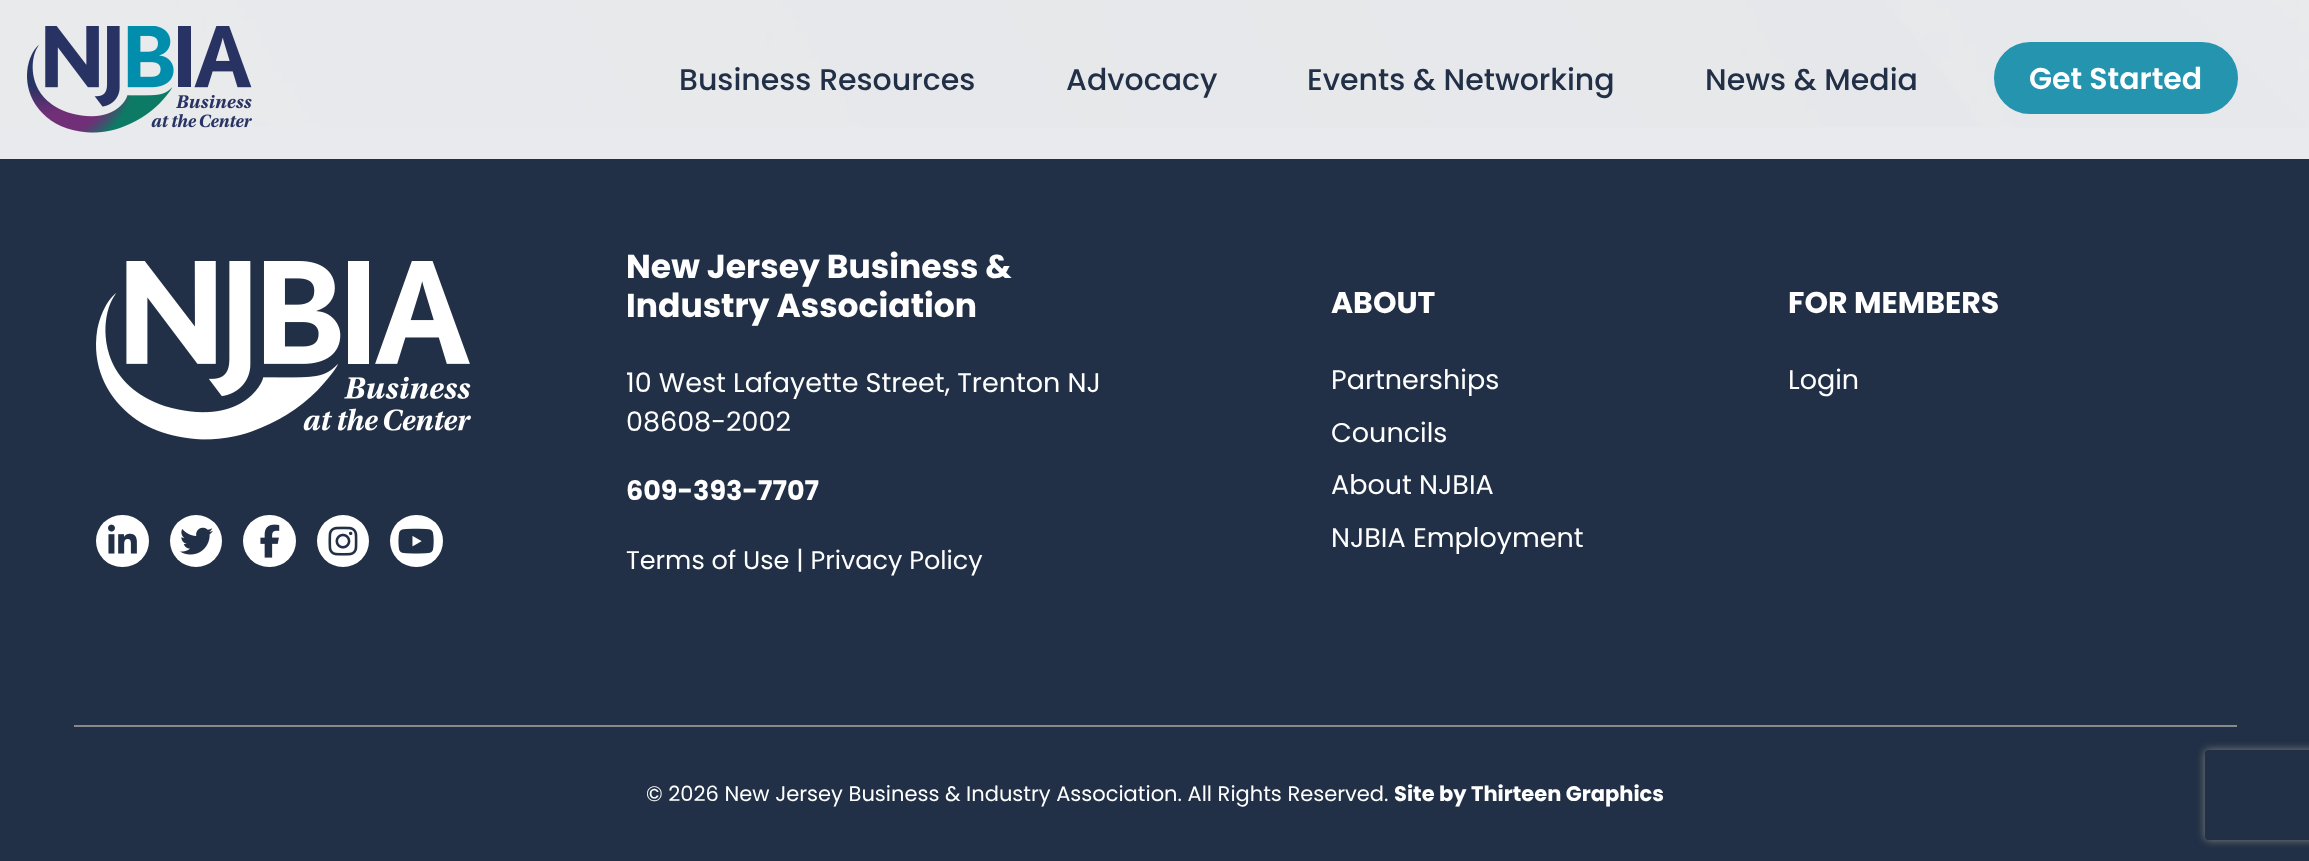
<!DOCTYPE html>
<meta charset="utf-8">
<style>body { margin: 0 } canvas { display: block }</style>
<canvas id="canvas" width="2309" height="861"></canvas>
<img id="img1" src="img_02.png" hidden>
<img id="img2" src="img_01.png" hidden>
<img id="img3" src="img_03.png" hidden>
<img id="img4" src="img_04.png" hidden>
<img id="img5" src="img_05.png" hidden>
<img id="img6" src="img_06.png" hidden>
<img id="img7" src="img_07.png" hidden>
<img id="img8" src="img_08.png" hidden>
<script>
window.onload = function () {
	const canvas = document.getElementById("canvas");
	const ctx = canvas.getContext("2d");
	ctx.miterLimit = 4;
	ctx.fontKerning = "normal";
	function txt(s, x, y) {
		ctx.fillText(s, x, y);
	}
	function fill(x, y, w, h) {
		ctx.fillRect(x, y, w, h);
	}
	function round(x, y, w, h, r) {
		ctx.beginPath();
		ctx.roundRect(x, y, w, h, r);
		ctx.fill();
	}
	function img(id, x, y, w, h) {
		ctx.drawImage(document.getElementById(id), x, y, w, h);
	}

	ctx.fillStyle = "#E9EAED";
	fill(0, 0, 2309, 861);
	img("img1", 0, 0, 2309, 128);
	img("img2", 27, 26, 225, 107);
	ctx.fillStyle = "#2594AF";
	ctx.beginPath();
	ctx.roundRect(1995.5, 43.5, 241, 69, 34.5);
	ctx.fill();
	ctx.strokeStyle = "#2594AF";
	ctx.lineWidth = 3;
	ctx.stroke();
	ctx.fillStyle = "#213046";
	fill(0, 159, 2309, 702);
	img("img3", 96, 261, 375, 179);
	ctx.fillStyle = "#FFFFFF";
	round(96, 515, 53, 52, 26);
	img("img4", 108, 524, 29, 30);
	ctx.beginPath();
	ctx.arc(196, 541, 26, 0, Math.PI * 2);
	ctx.fill();
	img("img5", 180, 527, 33, 28);
	round(243, 515, 53, 52, 26);
	img("img6", 260, 524, 20, 34);
	ctx.beginPath();
	ctx.arc(343, 541, 26, 0, Math.PI * 2);
	ctx.fill();
	img("img7", 328, 526, 30, 30);
	round(390, 515, 53, 52, 26);
	img("img8", 398, 528, 36, 26);
	ctx.fillStyle = "#898989";
	fill(74, 725, 2163, 2);
	ctx.save();
	ctx.beginPath();
	ctx.moveTo(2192, 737);
	ctx.lineTo(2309, 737);
	ctx.lineTo(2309, 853);
	ctx.lineTo(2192, 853);
	ctx.closePath();
	ctx.moveTo(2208, 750);
	ctx.lineTo(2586, 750);
	ctx.bezierCurveTo(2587.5, 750, 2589, 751.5, 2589, 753);
	ctx.lineTo(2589, 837);
	ctx.bezierCurveTo(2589, 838.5, 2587.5, 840, 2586, 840);
	ctx.lineTo(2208, 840);
	ctx.bezierCurveTo(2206.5, 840, 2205, 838.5, 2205, 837);
	ctx.lineTo(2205, 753);
	ctx.bezierCurveTo(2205, 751.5, 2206.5, 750, 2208, 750);
	ctx.closePath();
	ctx.clip("evenodd");
	ctx.fillStyle = "#808080";
	ctx.filter = "blur(4px)";
	ctx.beginPath();
	ctx.roundRect(2205, 750, 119, 90, 3);
	ctx.fill();
	ctx.filter = "none";
	ctx.restore();
	ctx.font = "500 30px Poppins";
	ctx.fillStyle = "#213046";
	txt("Business Resources", 679, 90);
	txt("Advocacy", 1066, 90);
	txt("Events & Networking", 1307, 90);
	txt("News & Media", 1705, 90);
	ctx.font = "600 30px Poppins";
	ctx.fillStyle = "#FFFFFF";
	txt("Get Started", 2029, 89);
	ctx.font = "bold 33px Poppins";
	txt("New Jersey Business &", 626, 278);
	txt("Industry Association", 626, 317);
	ctx.font = "27px Poppins";
	txt("10 West Lafayette Street, Trenton NJ", 626, 392);
	txt("08608-2002", 626, 431);
	ctx.font = "bold 27px Poppins";
	txt("609-393-7707", 626, 500);
	ctx.font = "25.5px Poppins";
	txt("Terms of Use | Privacy Policy", 626, 569);
	ctx.font = "bold 30px Poppins";
	txt("ABOUT", 1331, 313);
	ctx.font = "27px Poppins";
	txt("Partnerships", 1331, 389);
	txt("Councils", 1331, 442);
	txt("About NJBIA", 1331, 494);
	txt("NJBIA Employment", 1331, 547);
	ctx.font = "bold 30px Poppins";
	txt("FOR MEMBERS", 1788, 313);
	ctx.font = "27px Poppins";
	txt("Login", 1788, 389);
	ctx.font = "21px Poppins";
	txt("© 2026 New Jersey Business & Industry Association. All Rights Reserved.", 646, 801);
	ctx.font = "bold 21px Poppins";
	txt("Site by Thirteen Graphics", 1394, 801);
};
</script>
